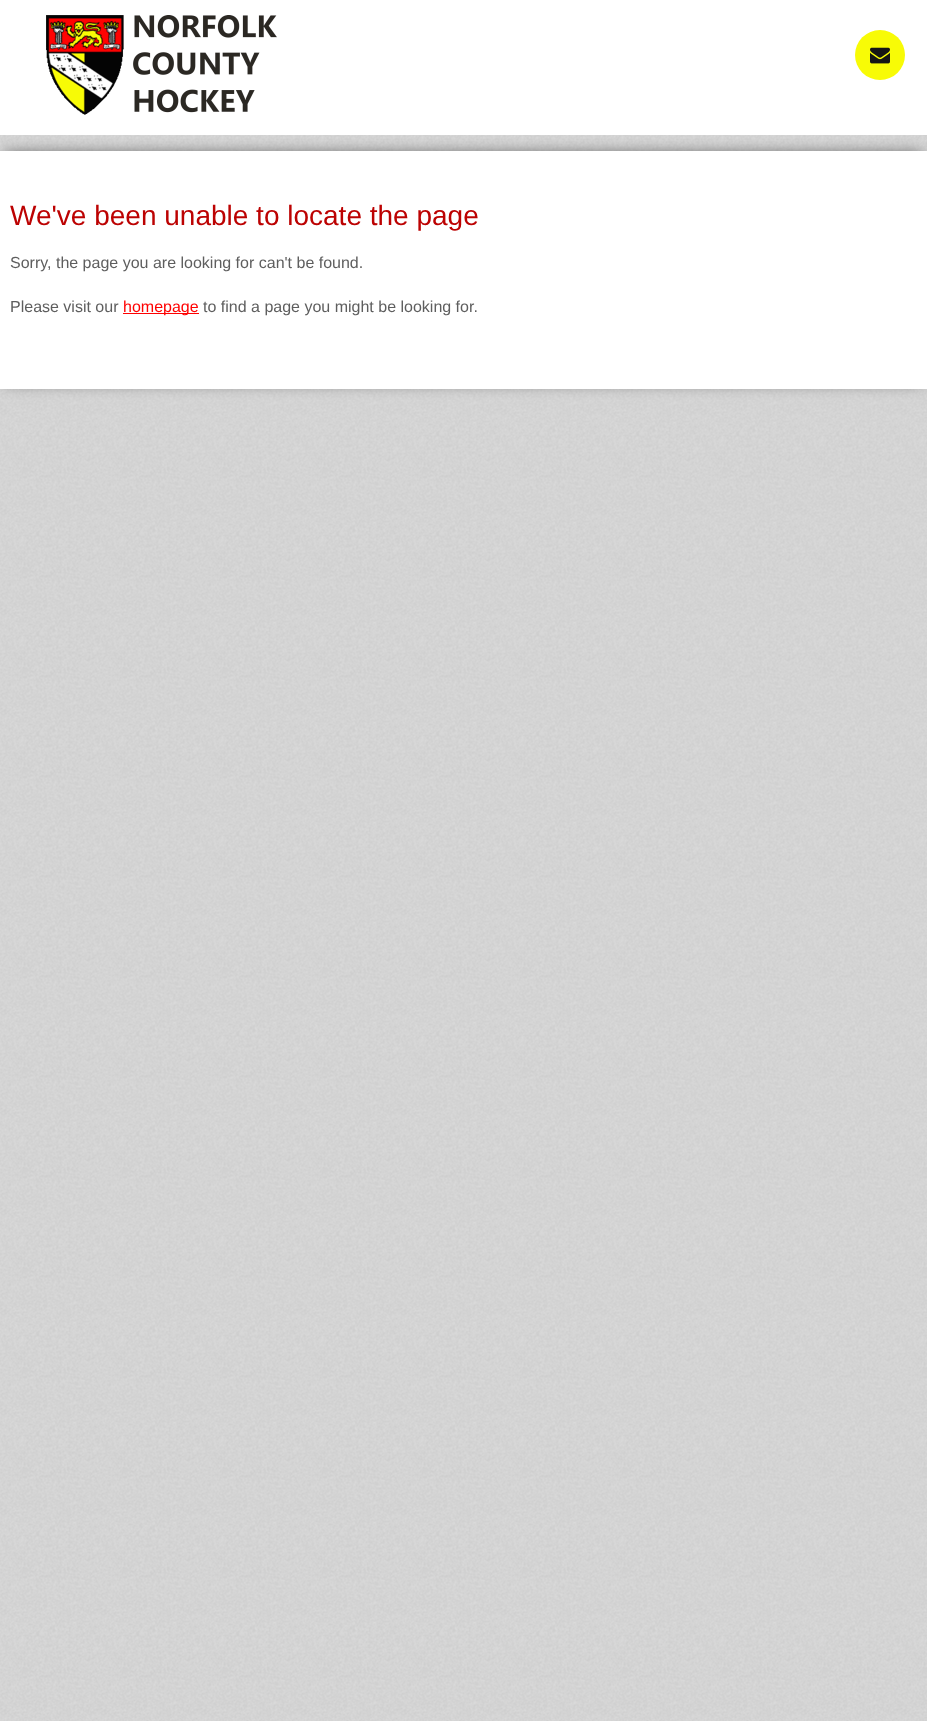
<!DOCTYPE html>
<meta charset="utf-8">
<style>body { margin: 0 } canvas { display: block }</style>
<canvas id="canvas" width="927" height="1721"></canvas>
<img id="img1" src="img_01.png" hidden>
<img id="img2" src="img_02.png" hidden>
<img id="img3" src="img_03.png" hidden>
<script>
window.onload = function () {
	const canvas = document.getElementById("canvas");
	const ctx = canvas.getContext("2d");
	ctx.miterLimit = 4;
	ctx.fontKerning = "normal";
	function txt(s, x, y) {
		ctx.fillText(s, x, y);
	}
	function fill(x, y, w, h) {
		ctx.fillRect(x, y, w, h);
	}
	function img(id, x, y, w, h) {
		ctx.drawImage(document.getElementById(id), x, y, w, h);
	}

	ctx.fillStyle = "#FFFFFF";
	fill(0, 0, 927, 1721);
	img("img1", 0, 135, 927, 1586);
	img("img2", 46, 15, 231, 100);
	ctx.fillStyle = "#F8FB06";
	ctx.beginPath();
	ctx.arc(880, 55, 25, 0, Math.PI * 2);
	ctx.fill();
	img("img3", 870, 47, 20, 17);
	ctx.fillStyle = "#4D4D4D";
	ctx.filter = "blur(7.5px)";
	ctx.beginPath();
	ctx.rect(5, 154, 917, 228);
	ctx.fill();
	ctx.filter = "none";
	ctx.fillStyle = "#FFFFFF";
	fill(0, 151, 927, 238);
	ctx.fillStyle = "#FF0202";
	fill(123, 313, 76, 1);
	ctx.font = "28px Liberation Sans";
	ctx.fillStyle = "#BC0202";
	txt("We've been unable to locate the page", 10, 225);
	ctx.font = "16px Liberation Sans";
	ctx.fillStyle = "#5E5E5E";
	txt("Sorry, the page you are looking for can't be found.", 10, 268);
	txt("Please visit our", 10, 312);
	ctx.fillStyle = "#FF0202";
	txt("homepage", 123, 312);
	ctx.fillStyle = "#5E5E5E";
	txt("to find a page you might be looking for.", 203, 312);
};
</script>
